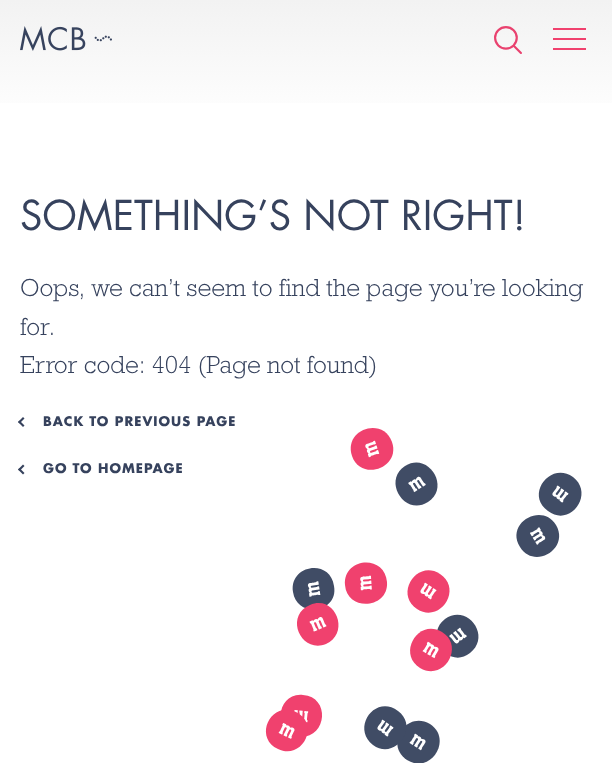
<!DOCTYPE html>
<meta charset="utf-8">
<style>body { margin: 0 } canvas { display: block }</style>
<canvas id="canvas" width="612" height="763"></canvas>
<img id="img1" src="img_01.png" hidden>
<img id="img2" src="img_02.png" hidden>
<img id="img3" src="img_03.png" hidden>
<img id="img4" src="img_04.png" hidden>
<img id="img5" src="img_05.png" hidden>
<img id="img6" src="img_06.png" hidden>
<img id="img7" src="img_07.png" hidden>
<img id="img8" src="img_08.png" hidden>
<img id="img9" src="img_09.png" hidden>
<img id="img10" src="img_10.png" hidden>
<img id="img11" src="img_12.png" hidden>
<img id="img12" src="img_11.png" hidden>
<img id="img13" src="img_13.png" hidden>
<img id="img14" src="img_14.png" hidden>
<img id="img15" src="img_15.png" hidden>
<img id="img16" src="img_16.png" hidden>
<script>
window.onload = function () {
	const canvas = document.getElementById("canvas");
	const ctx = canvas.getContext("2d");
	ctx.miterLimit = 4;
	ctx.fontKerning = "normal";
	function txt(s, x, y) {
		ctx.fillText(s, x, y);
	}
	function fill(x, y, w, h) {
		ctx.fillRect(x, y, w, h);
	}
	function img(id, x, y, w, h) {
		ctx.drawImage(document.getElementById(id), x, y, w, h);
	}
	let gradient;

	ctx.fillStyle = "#FFFFFF";
	fill(0, 0, 612, 763);
	gradient = ctx.createLinearGradient(306, 0, 306, 127);
	gradient.addColorStop(0, "#F2F2F2");
	gradient.addColorStop(1, "#FFFFFF");
	ctx.fillStyle = gradient;
	fill(0, 0, 612, 103);
	img("img1", 20, 26, 92, 25);
	img("img2", 494, 26, 28, 28);
	ctx.fillStyle = "#F0416E";
	fill(553, 28, 33, 2);
	fill(553, 38, 33, 2);
	fill(553, 48, 33, 2);
	ctx.fillStyle = "#36425D";
	ctx.beginPath();
	ctx.moveTo(18, 422);
	ctx.lineTo(23, 417);
	ctx.lineTo(24.5, 418.5);
	ctx.lineTo(19.5, 423.5);
	ctx.closePath();
	ctx.fill();
	ctx.beginPath();
	ctx.moveTo(18, 422);
	ctx.lineTo(19.5, 420.5);
	ctx.lineTo(24.5, 425.5);
	ctx.lineTo(23, 427);
	ctx.closePath();
	ctx.fill();
	ctx.beginPath();
	ctx.moveTo(18, 469.5);
	ctx.lineTo(23, 464.5);
	ctx.lineTo(24.5, 466);
	ctx.lineTo(19.5, 471);
	ctx.closePath();
	ctx.fill();
	ctx.beginPath();
	ctx.moveTo(18, 469.5);
	ctx.lineTo(19.5, 468);
	ctx.lineTo(24.5, 473);
	ctx.lineTo(23, 474.5);
	ctx.closePath();
	ctx.fill();
	ctx.fillStyle = "#F0416E";
	ctx.beginPath();
	ctx.moveTo(352, 456);
	ctx.bezierCurveTo(343, 429, 383, 416, 392, 442);
	ctx.bezierCurveTo(401, 468, 361, 482, 352, 456);
	ctx.closePath();
	ctx.fill();
	img("img3", 365, 440, 15, 18);
	ctx.fillStyle = "#404C65";
	ctx.beginPath();
	ctx.moveTo(405, 466);
	ctx.bezierCurveTo(428, 451, 451, 487, 428, 502);
	ctx.bezierCurveTo(405, 517, 382, 481, 405, 466);
	ctx.closePath();
	ctx.fill();
	img("img4", 408, 476, 18, 17);
	ctx.beginPath();
	ctx.moveTo(548, 511);
	ctx.bezierCurveTo(525, 495, 550, 461, 573, 477);
	ctx.bezierCurveTo(595, 494, 570, 528, 548, 511);
	ctx.closePath();
	ctx.fill();
	img("img5", 552, 485, 17, 18);
	ctx.beginPath();
	ctx.moveTo(556, 525);
	ctx.bezierCurveTo(570, 549, 534, 570, 520, 547);
	ctx.bezierCurveTo(505, 523, 542, 502, 556, 525);
	ctx.closePath();
	ctx.fill();
	img("img6", 530, 527, 16, 18);
	ctx.beginPath();
	ctx.moveTo(293, 592);
	ctx.bezierCurveTo(289, 565, 330, 558, 334, 586);
	ctx.bezierCurveTo(339, 613, 297, 619, 293, 592);
	ctx.closePath();
	ctx.fill();
	img("img7", 307, 581, 14, 16);
	ctx.fillStyle = "#F0416E";
	ctx.beginPath();
	ctx.moveTo(345, 585);
	ctx.bezierCurveTo(343, 557, 385, 554, 387, 582);
	ctx.bezierCurveTo(389, 609, 347, 612, 345, 585);
	ctx.closePath();
	ctx.fill();
	img("img8", 360, 575, 12, 16);
	ctx.beginPath();
	ctx.moveTo(417, 609);
	ctx.bezierCurveTo(394, 594, 417, 559, 440, 574);
	ctx.bezierCurveTo(463, 589, 440, 624, 417, 609);
	ctx.closePath();
	ctx.fill();
	img("img9", 420, 582, 17, 18);
	ctx.beginPath();
	ctx.moveTo(310, 605);
	ctx.bezierCurveTo(335, 594, 351, 633, 326, 644);
	ctx.bezierCurveTo(301, 654, 284, 616, 310, 605);
	ctx.closePath();
	ctx.fill();
	img("img10", 309, 617, 18, 15);
	ctx.fillStyle = "#404C65";
	ctx.beginPath();
	ctx.moveTo(470, 653);
	ctx.bezierCurveTo(449, 670, 423, 636, 445, 619);
	ctx.bezierCurveTo(467, 603, 492, 636, 470, 653);
	ctx.closePath();
	ctx.fill();
	img("img11", 449, 627, 18, 17);
	ctx.fillStyle = "#F0416E";
	ctx.beginPath();
	ctx.moveTo(442, 632);
	ctx.bezierCurveTo(465, 646, 444, 682, 420, 668);
	ctx.bezierCurveTo(397, 654, 418, 618, 442, 632);
	ctx.closePath();
	ctx.fill();
	img("img12", 422, 641, 17, 18);
	ctx.beginPath();
	ctx.moveTo(299, 737);
	ctx.bezierCurveTo(272, 734, 276, 692, 303, 695);
	ctx.bezierCurveTo(331, 697, 327, 739, 299, 737);
	ctx.closePath();
	ctx.fill();
	img("img13", 294, 710, 15, 13);
	ctx.fillStyle = "#404C65";
	ctx.beginPath();
	ctx.moveTo(430, 724);
	ctx.bezierCurveTo(453, 739, 431, 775, 407, 760);
	ctx.bezierCurveTo(384, 745, 406, 710, 430, 724);
	ctx.closePath();
	ctx.fill();
	ctx.beginPath();
	ctx.moveTo(373, 745);
	ctx.bezierCurveTo(351, 728, 375, 694, 398, 711);
	ctx.bezierCurveTo(420, 727, 395, 761, 373, 745);
	ctx.closePath();
	ctx.fill();
	img("img14", 377, 719, 17, 18);
	ctx.fillStyle = "#F0416E";
	ctx.beginPath();
	ctx.moveTo(296, 712);
	ctx.bezierCurveTo(321, 724, 302, 761, 278, 749);
	ctx.bezierCurveTo(253, 737, 271, 700, 296, 712);
	ctx.closePath();
	ctx.fill();
	img("img15", 278, 723, 17, 16);
	img("img16", 409, 733, 17, 18);
	ctx.font = "40px Futura";
	ctx.fillStyle = "#36425D";
	txt("SOMETHING’S NOT RIGHT!", 20, 230);
	ctx.font = "300 25px Rockwell";
	txt("Oops, we can’t seem to find the page you’re looking", 20, 296);
	txt("for.", 20, 335);
	txt("Error code: 404 (Page not found)", 20, 373);
	ctx.letterSpacing = "1px";
	ctx.font = "bold 13px Futura";
	txt("BACK TO PREVIOUS PAGE", 43, 426);
	txt("GO TO HOMEPAGE", 43, 473);
};
</script>
